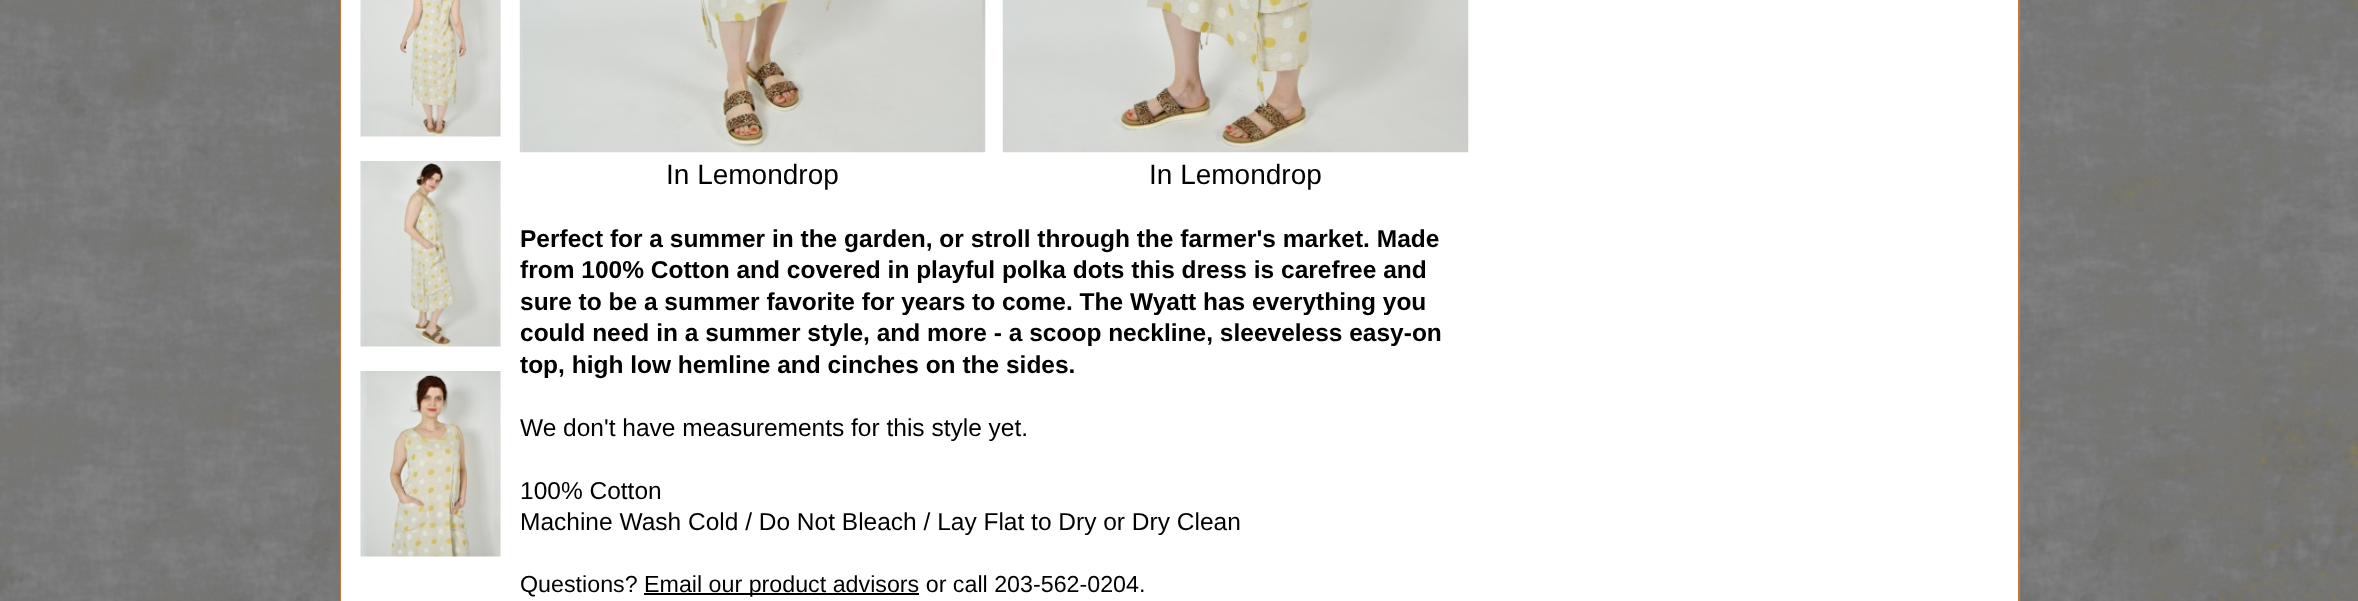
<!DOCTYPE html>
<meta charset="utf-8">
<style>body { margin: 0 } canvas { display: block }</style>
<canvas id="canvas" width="2358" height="601"></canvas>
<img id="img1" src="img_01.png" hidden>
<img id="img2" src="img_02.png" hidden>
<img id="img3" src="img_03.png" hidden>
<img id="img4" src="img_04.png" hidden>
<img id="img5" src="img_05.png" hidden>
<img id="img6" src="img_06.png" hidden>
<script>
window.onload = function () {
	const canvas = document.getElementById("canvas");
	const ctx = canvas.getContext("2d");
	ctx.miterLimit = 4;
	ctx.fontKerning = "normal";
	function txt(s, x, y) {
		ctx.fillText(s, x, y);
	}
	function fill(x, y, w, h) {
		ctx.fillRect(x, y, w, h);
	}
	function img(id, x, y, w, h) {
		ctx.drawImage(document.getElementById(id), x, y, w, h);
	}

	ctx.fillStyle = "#FFFFFF";
	fill(0, 0, 2358, 601);
	img("img1", 0, 0, 2358, 601);
	fill(341, 0, 1677, 601);
	ctx.fillStyle = "#C97737";
	fill(2018, 0, 2, 601);
	fill(340, 0, 1, 601);
	img("img2", 360, 0, 141, 137);
	img("img3", 360, 161, 141, 186);
	img("img4", 360, 371, 141, 186);
	img("img5", 519, 0, 467, 153);
	img("img6", 1002, 0, 467, 153);
	ctx.fillStyle = "#000000";
	fill(644, 593, 275, 2);
	ctx.font = "28px Liberation Sans";
	txt("In Lemondrop", 666, 184);
	txt("In Lemondrop", 1149, 184);
	ctx.font = "bold 24.5px Liberation Sans";
	txt("Perfect for a summer in the garden, or stroll through the farmer's market. Made", 520, 247);
	txt("from 100% Cotton and covered in playful polka dots this dress is carefree and", 520, 278);
	txt("sure to be a summer favorite for years to come. The Wyatt has everything you", 520, 310);
	txt("could need in a summer style, and more - a scoop neckline, sleeveless easy-on", 520, 341);
	txt("top, high low hemline and cinches on the sides.", 520, 373);
	ctx.font = "24.5px Liberation Sans";
	txt("We don't have measurements for this style yet.", 520, 436);
	txt("100% Cotton", 520, 499);
	txt("Machine Wash Cold / Do Not Bleach / Lay Flat to Dry or Dry Clean", 520, 530);
	ctx.font = "23.25px Liberation Sans";
	txt("Questions?", 520, 592);
	txt("Email our product advisors or call 203-562-0204.", 644, 592);
};
</script>
